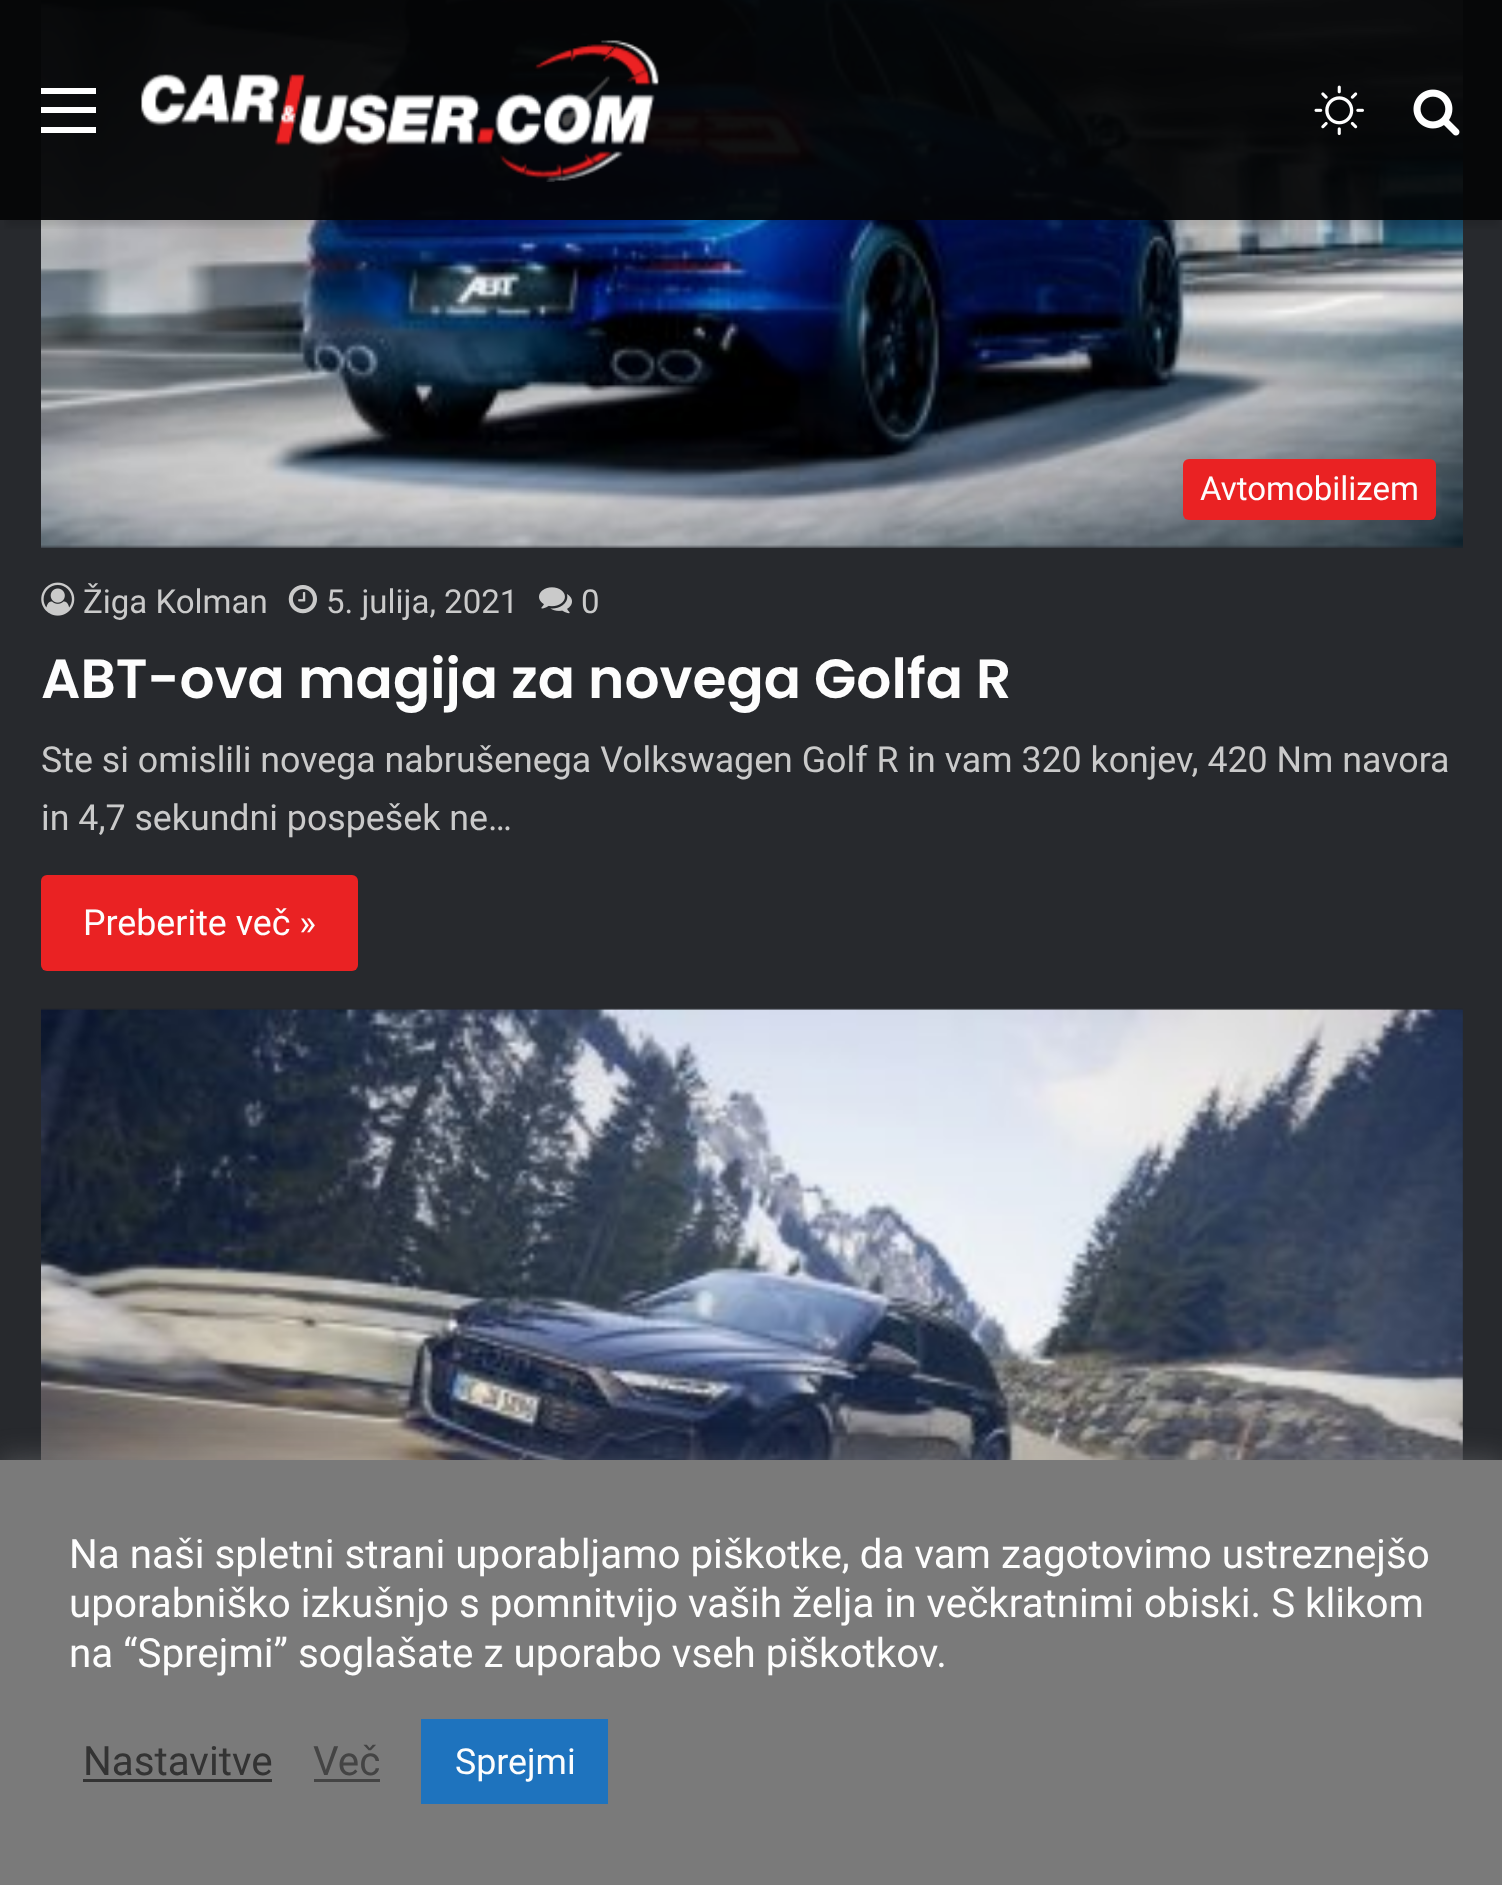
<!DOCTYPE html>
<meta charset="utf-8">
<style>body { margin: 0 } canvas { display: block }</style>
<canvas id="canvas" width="1502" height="1885"></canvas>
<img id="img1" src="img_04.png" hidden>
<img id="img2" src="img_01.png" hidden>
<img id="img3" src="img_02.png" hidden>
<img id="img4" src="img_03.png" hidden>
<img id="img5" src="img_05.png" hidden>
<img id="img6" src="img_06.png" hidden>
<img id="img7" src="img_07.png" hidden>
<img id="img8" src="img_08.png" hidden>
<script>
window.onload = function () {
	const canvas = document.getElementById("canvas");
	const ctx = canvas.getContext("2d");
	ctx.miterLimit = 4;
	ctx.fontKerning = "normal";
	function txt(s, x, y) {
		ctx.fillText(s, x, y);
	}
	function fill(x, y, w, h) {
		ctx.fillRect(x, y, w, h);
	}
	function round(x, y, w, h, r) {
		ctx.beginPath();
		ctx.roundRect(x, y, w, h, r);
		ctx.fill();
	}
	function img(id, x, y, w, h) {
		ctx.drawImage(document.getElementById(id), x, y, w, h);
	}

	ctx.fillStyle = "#27292D";
	fill(0, 0, 1502, 1885);
	img("img1", 41, 0, 1422, 548);
	ctx.save();
	ctx.beginPath();
	ctx.rect(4, 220, 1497, 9);
	ctx.clip();
	ctx.fillStyle = "rgba(0, 0, 0, 0.1)";
	ctx.filter = "blur(3px)";
	ctx.beginPath();
	ctx.rect(6, 17, 1493, 209);
	ctx.fill();
	ctx.filter = "none";
	ctx.restore();
	ctx.fillStyle = "rgba(4, 5, 6, 0.95)";
	fill(0, 0, 1502, 220);
	ctx.fillStyle = "#FFFFFF";
	fill(41, 107, 55, 6);
	fill(41, 88, 55, 6);
	fill(41, 127, 55, 6);
	img("img2", 141, 40, 518, 142);
	img("img3", 1314, 85, 50, 51);
	img("img4", 1413, 89, 47, 47);
	ctx.fillStyle = "#EA2223";
	round(1183, 459, 253, 61, 6);
	img("img5", 41, 582, 34, 34);
	img("img6", 288, 585, 29, 29);
	img("img7", 539, 587, 33, 27);
	round(41, 875, 317, 96, 6);
	img("img8", 41, 1008, 1422, 452);
	ctx.fillStyle = "rgba(172, 171, 171, 0.3)";
	ctx.filter = "blur(14px)";
	ctx.beginPath();
	ctx.rect(0, 1458, 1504, 426);
	ctx.fill();
	ctx.filter = "none";
	ctx.fillStyle = "#7A7A7A";
	fill(0, 1460, 1502, 425);
	ctx.fillStyle = "#333333";
	fill(83, 1779, 189, 3);
	ctx.fillStyle = "#444444";
	fill(314, 1779, 66, 3);
	ctx.fillStyle = "#1E73BE";
	fill(421, 1719, 187, 85);
	ctx.font = "33px Roboto";
	ctx.fillStyle = "#FDFDFD";
	txt("Avtomobilizem", 1200, 500);
	ctx.fillStyle = "#CACACA";
	txt("Žiga Kolman", 83, 613);
	txt("5. julija, 2021", 326, 613);
	txt("0", 581, 613);
	ctx.font = "600 55px Poppins";
	ctx.fillStyle = "#FDFDFD";
	txt("ABT-ova magija za novega Golfa R", 41, 698);
	ctx.font = "35.75px Roboto";
	ctx.fillStyle = "#CACACA";
	txt("Ste si omislili novega nabrušenega Volkswagen Golf R in vam 320 konjev, 420 Nm navora", 41, 772);
	txt("in 4,7 sekundni pospešek ne…", 41, 830);
	ctx.fillStyle = "#FDFDFD";
	txt("Preberite več »", 83, 935);
	ctx.font = "40.35px Roboto";
	txt("Na naši spletni strani uporabljamo piškotke, da vam zagotovimo ustreznejšo", 69, 1568);
	txt("uporabniško izkušnjo s pomnitvijo vaših želja in večkratnimi obiski. S klikom", 69, 1617);
	txt("na “Sprejmi” soglašate z uporabo vseh piškotkov.", 69, 1667);
	ctx.fillStyle = "#333333";
	txt("Nastavitve", 83, 1775);
	ctx.fillStyle = "#444444";
	txt("Več", 313, 1775);
	ctx.font = "35.75px Roboto";
	ctx.fillStyle = "#FDFDFD";
	txt("Sprejmi", 455, 1774);
};
</script>
